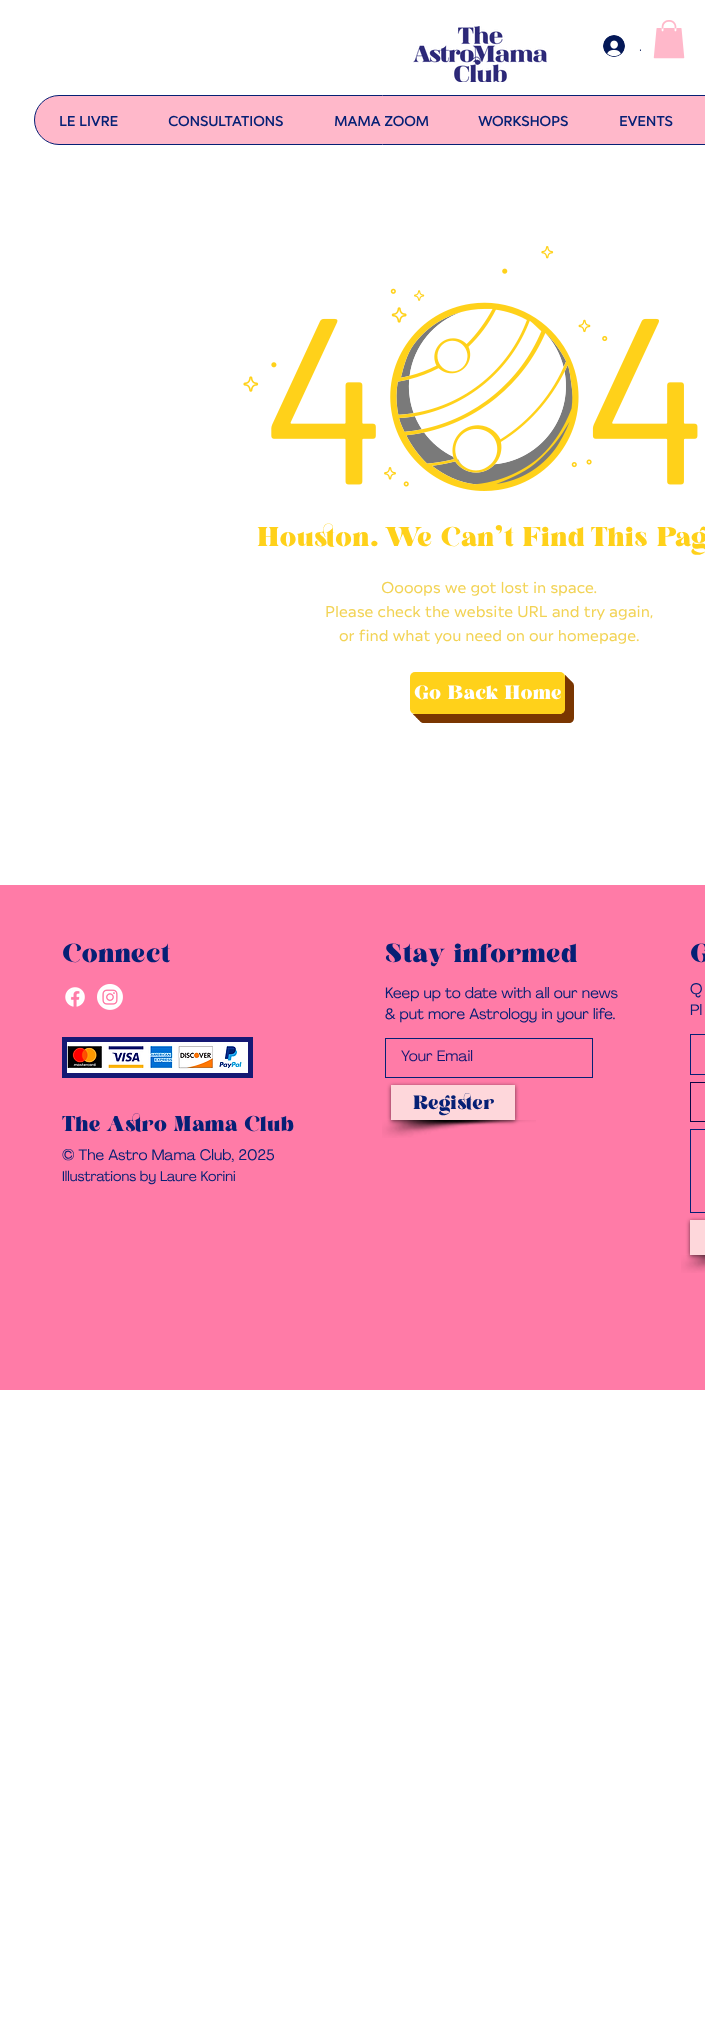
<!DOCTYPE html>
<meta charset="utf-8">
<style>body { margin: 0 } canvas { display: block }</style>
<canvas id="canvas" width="705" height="2027"></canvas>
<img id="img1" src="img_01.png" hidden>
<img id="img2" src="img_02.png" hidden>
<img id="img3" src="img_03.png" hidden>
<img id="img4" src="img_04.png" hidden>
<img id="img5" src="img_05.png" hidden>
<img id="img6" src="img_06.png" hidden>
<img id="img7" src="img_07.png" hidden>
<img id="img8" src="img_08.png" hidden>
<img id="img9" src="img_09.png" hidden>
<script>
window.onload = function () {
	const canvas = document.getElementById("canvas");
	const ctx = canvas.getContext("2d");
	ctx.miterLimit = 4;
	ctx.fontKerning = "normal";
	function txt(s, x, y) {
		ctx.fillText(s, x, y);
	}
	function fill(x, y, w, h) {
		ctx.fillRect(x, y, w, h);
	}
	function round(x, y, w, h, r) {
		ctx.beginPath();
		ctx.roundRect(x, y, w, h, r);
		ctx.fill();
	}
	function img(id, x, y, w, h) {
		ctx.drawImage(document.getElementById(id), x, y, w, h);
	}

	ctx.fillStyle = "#FFFFFF";
	fill(0, 0, 705, 2027);
	img("img1", 603, 35, 22, 22);
	img("img2", 653, 20, 32, 39);
	img("img3", 413, 26, 134, 56);
	ctx.fillStyle = "#FFB8CA";
	ctx.beginPath();
	ctx.roundRect(34.5, 95.5, 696, 49, 24.5);
	ctx.fill();
	ctx.strokeStyle = "#062075";
	ctx.stroke();
	img("img4", 243, 246, 455, 245);
	ctx.fillStyle = "#7A3601";
	ctx.beginPath();
	ctx.moveTo(419, 714);
	ctx.lineTo(419, 718);
	ctx.bezierCurveTo(419, 721, 421, 723, 424, 723);
	ctx.lineTo(569, 723);
	ctx.bezierCurveTo(572, 723, 574, 721, 574, 718);
	ctx.lineTo(574, 686);
	ctx.bezierCurveTo(574, 683, 572, 681, 569, 681);
	ctx.lineTo(565, 681);
	ctx.lineTo(565, 709);
	ctx.bezierCurveTo(565, 712, 563, 714, 560, 714);
	ctx.closePath();
	ctx.fill();
	ctx.beginPath();
	ctx.moveTo(417, 714);
	ctx.lineTo(417, 716);
	ctx.bezierCurveTo(417, 719, 419, 721, 422, 721);
	ctx.lineTo(567, 721);
	ctx.bezierCurveTo(570, 721, 572, 719, 572, 716);
	ctx.lineTo(572, 684);
	ctx.bezierCurveTo(572, 681, 570, 679, 567, 679);
	ctx.lineTo(565, 679);
	ctx.lineTo(565, 709);
	ctx.bezierCurveTo(565, 712, 563, 714, 560, 714);
	ctx.closePath();
	ctx.fill();
	ctx.beginPath();
	ctx.moveTo(415, 714);
	ctx.bezierCurveTo(415, 717, 417, 719, 420, 719);
	ctx.lineTo(565, 719);
	ctx.bezierCurveTo(568, 719, 570, 717, 570, 714);
	ctx.lineTo(570, 682);
	ctx.bezierCurveTo(570, 679, 568, 677, 565, 677);
	ctx.lineTo(565, 709);
	ctx.bezierCurveTo(565, 712, 563, 714, 560, 714);
	ctx.closePath();
	ctx.fill();
	ctx.beginPath();
	ctx.moveTo(413, 714);
	ctx.bezierCurveTo(414, 716, 416, 717, 418, 717);
	ctx.lineTo(563, 717);
	ctx.bezierCurveTo(566, 717, 568, 715, 568, 712);
	ctx.lineTo(568, 680);
	ctx.bezierCurveTo(568, 678, 567, 676, 565, 675);
	ctx.lineTo(565, 698);
	ctx.bezierCurveTo(565, 702, 567, 714, 560, 714);
	ctx.closePath();
	ctx.fill();
	ctx.beginPath();
	ctx.moveTo(412, 713);
	ctx.bezierCurveTo(413, 714, 414, 715, 416, 715);
	ctx.lineTo(561, 715);
	ctx.bezierCurveTo(564, 715, 566, 713, 566, 710);
	ctx.lineTo(566, 678);
	ctx.bezierCurveTo(566, 676, 565, 675, 564, 674);
	ctx.bezierCurveTo(565, 675, 565, 676, 565, 677);
	ctx.lineTo(565, 709);
	ctx.bezierCurveTo(565, 712, 563, 714, 560, 714);
	ctx.lineTo(415, 714);
	ctx.bezierCurveTo(414, 714, 413, 714, 412, 713);
	ctx.closePath();
	ctx.fill();
	ctx.fillStyle = "#FFD11A";
	round(410, 672, 155, 42, 5);
	ctx.fillStyle = "#FF7BA7";
	fill(0, 885, 705, 505);
	img("img5", 65, 987, 20, 20);
	img("img6", 97, 984, 26, 26);
	ctx.fillStyle = "#151974";
	fill(62, 1037, 191, 41);
	img("img7", 67, 1042, 181, 31);
	ctx.strokeRect(385.5, 1038.5, 207, 39);
	img("img8", 382, 1120, 154, 18);
	ctx.fillStyle = "rgba(0, 0, 0, 0.6)";
	ctx.filter = "blur(2px)";
	ctx.beginPath();
	ctx.rect(391, 1086, 124, 35);
	ctx.fill();
	ctx.filter = "none";
	ctx.fillStyle = "#FED7DB";
	fill(391, 1085, 124, 35);
	ctx.strokeRect(690.5, 1034.5, 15, 40);
	ctx.strokeStyle = "#0B0745";
	ctx.strokeRect(690.5, 1082.5, 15, 39);
	ctx.strokeStyle = "#062075";
	ctx.strokeRect(690.5, 1129.5, 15, 83);
	img("img9", 681, 1255, 24, 18);
	ctx.fillStyle = "rgba(0, 0, 0, 0.6)";
	ctx.filter = "blur(2px)";
	ctx.beginPath();
	ctx.rect(690, 1221, 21, 35);
	ctx.fill();
	ctx.filter = "none";
	ctx.fillStyle = "#FED7DB";
	fill(690, 1220, 15, 35);
	ctx.font = "15px Raleway";
	ctx.fillStyle = "#041857";
	txt(".", 639, 51);
	ctx.font = "bold 14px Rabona";
	ctx.fillStyle = "#062075";
	txt("LE LIVRE", 59, 126);
	txt("CONSULTATIONS", 168, 126);
	txt("MAMA ZOOM", 334, 126);
	txt("WORKSHOPS", 478, 126);
	txt("EVENTS", 619, 126);
	ctx.font = "28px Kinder";
	ctx.fillStyle = "#FFD11A";
	txt("Houston. We Can’t Find This Pag", 257, 546);
	ctx.font = "16px Rabona";
	ctx.fillStyle = "#F2D355";
	txt("Oooops we got lost in space.", 381, 593);
	txt("Please check the website URL and try again,", 325, 617);
	txt("or find what you need on our homepage.", 339, 641);
	ctx.font = "20px Kinder";
	ctx.fillStyle = "#FFFFFF";
	txt("Go Back Home", 414, 699);
	ctx.font = "27px Kinder";
	ctx.fillStyle = "#062075";
	txt("Connect", 62, 962);
	ctx.font = "22px Kinder";
	txt("The Astro Mama Club", 62, 1131);
	ctx.font = "15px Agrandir";
	txt("© The Astro Mama Club, 2025", 62, 1160);
	ctx.font = "14px Agrandir";
	txt("Illustrations by Laure Korini", 62, 1181);
	ctx.font = "27px Kinder";
	txt("Stay informed", 385, 962);
	ctx.font = "15px Agrandir";
	txt("Keep up to date with all our news", 385, 998);
	txt("& put more Astrology in your life.", 385, 1019);
	ctx.fillStyle = "#151974";
	txt("Your Email", 401, 1061);
	ctx.font = "20px Kinder";
	ctx.fillStyle = "#062075";
	txt("Register", 413, 1109);
	ctx.font = "27px Kinder";
	txt("G", 690, 962);
	ctx.font = "15px Agrandir";
	txt("Q", 690, 994);
	txt("Pl", 690, 1015);
};
</script>
